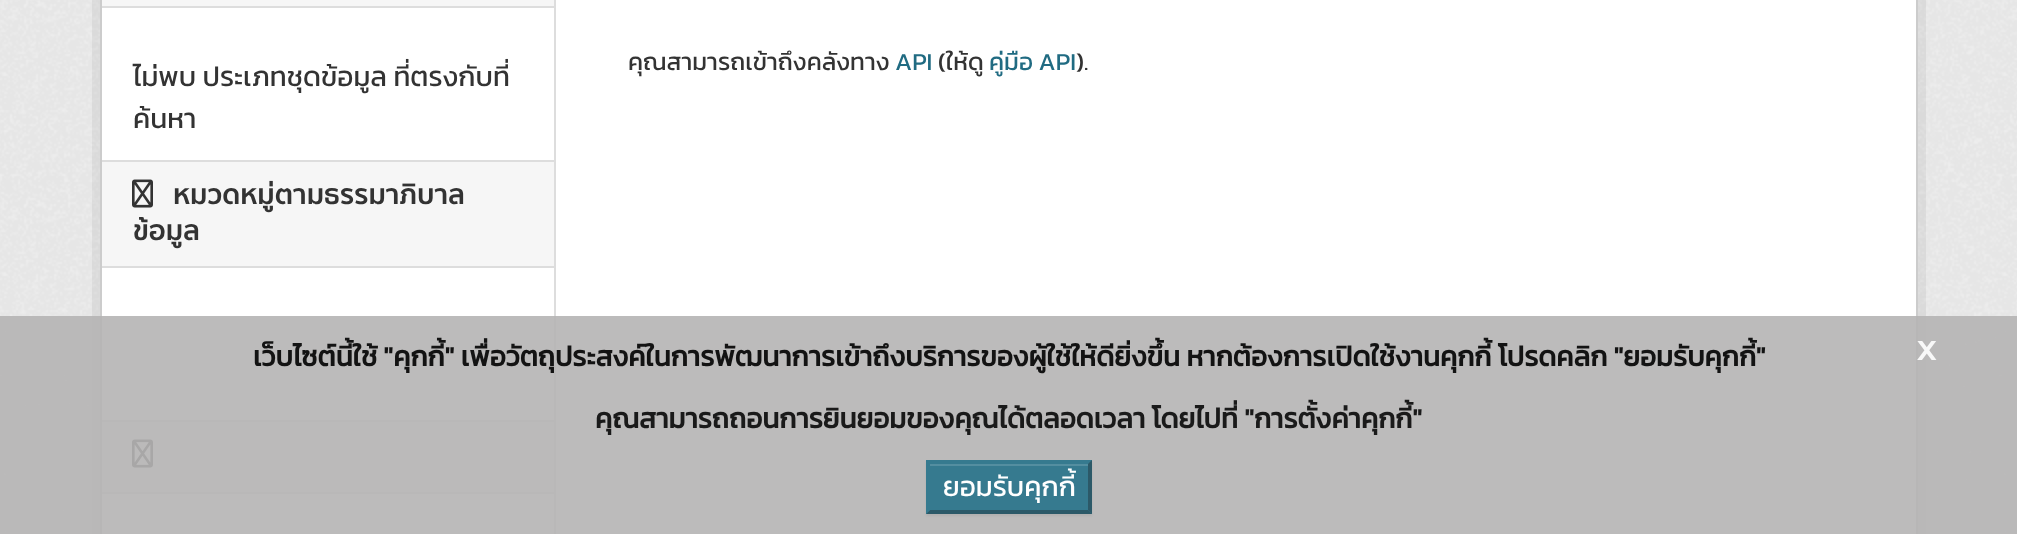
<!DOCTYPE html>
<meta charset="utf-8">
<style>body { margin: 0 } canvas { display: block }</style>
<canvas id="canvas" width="2017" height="534"></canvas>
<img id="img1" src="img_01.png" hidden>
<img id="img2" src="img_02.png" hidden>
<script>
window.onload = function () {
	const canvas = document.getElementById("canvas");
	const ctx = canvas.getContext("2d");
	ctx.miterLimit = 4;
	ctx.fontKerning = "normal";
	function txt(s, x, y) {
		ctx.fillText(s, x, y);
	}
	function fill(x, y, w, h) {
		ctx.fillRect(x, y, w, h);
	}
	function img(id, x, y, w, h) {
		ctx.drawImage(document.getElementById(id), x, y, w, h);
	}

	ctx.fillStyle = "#EEEEEE";
	fill(0, 0, 2017, 534);
	img("img1", 0, 0, 2017, 534);
	ctx.strokeStyle = "rgba(0, 0, 0, 0.05)";
	ctx.lineWidth = 8;
	ctx.strokeRect(96, -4, 1826, 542);
	ctx.fillStyle = "#FFFFFF";
	ctx.beginPath();
	ctx.rect(101, -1, 1816, 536);
	ctx.fill();
	ctx.strokeStyle = "#CCCCCC";
	ctx.lineWidth = 2;
	ctx.stroke();
	ctx.fillStyle = "#F6F6F6";
	fill(102, 0, 452, 6);
	ctx.fillStyle = "#DDDDDD";
	fill(102, 6, 452, 2);
	ctx.fillStyle = "#F6F6F6";
	fill(102, 162, 452, 104);
	ctx.fillStyle = "#DDDDDD";
	fill(102, 160, 452, 2);
	fill(102, 266, 452, 2);
	img("img2", 132, 179, 21, 29);
	ctx.fillStyle = "#F6F6F6";
	fill(102, 422, 452, 70);
	ctx.fillStyle = "#DDDDDD";
	fill(102, 420, 452, 2);
	fill(102, 492, 452, 2);
	img("img2", 132, 439, 21, 29);
	fill(554, 0, 2, 534);
	ctx.fillStyle = "rgba(181, 180, 180, 0.9)";
	fill(0, 316, 2017, 218);
	ctx.fillStyle = "rgba(26, 26, 26, 0.07)";
	ctx.filter = "blur(1px)";
	ctx.beginPath();
	ctx.rect(926, 462, 166, 54);
	ctx.fill();
	ctx.filter = "none";
	ctx.fillStyle = "#367A8F";
	fill(926, 460, 166, 54);
	ctx.fillStyle = "#548EA0";
	fill(930, 464, 158, 2);
	ctx.fillStyle = "#2C5968";
	ctx.beginPath();
	ctx.moveTo(1092, 460);
	ctx.lineTo(1092, 514);
	ctx.lineTo(1088, 510);
	ctx.lineTo(1088, 464);
	ctx.closePath();
	ctx.fill();
	ctx.beginPath();
	ctx.moveTo(1092, 514);
	ctx.lineTo(926, 514);
	ctx.lineTo(930, 510);
	ctx.lineTo(1088, 510);
	ctx.closePath();
	ctx.fill();
	ctx.fillStyle = "#367A8F";
	ctx.beginPath();
	ctx.moveTo(926, 514);
	ctx.lineTo(926, 460);
	ctx.lineTo(930, 464);
	ctx.lineTo(930, 510);
	ctx.closePath();
	ctx.fill();
	ctx.font = "28px Kanit";
	ctx.fillStyle = "#333333";
	txt("ไม่พบ ประเภทชุดข้อมูล ที่ตรงกับที่", 133, 86);
	txt("ค้นหา", 133, 128);
	ctx.font = "bold 28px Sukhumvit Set";
	txt("หมวดหมู่ตามธรรมาภิบาล", 173, 204);
	txt("ข้อมูล", 133, 240);
	ctx.font = "24.5px Kanit";
	txt("คุณสามารถเข้าถึงคลังทาง", 628, 70);
	ctx.fillStyle = "#206B82";
	txt("API", 895, 70);
	ctx.fillStyle = "#333333";
	txt("(ให้ดู", 938, 70);
	ctx.fillStyle = "#206B82";
	txt("คู่มือ API", 989, 70);
	ctx.fillStyle = "#333333";
	txt(").", 1076, 70);
	ctx.font = "bold 28px Kanit";
	ctx.fillStyle = "#131313";
	txt("เว็บไซต์นี้ใช้ \"คุกกี้\" เพื่อวัตถุประสงค์ในการพัฒนาการเข้าถึงบริการของผู้ใช้ให้ดียิ่งขึ้น หากต้องการเปิดใช้งานคุกกี้ โปรดคลิก \"ยอมรับคุกกี้\"", 253, 366);
	ctx.font = "40px Kanit";
	ctx.fillStyle = "#F8F8F8";
	txt("x", 1916, 360);
	ctx.font = "bold 28px Kanit";
	ctx.fillStyle = "#1A1A1A";
	txt("คุณสามารถถอนการยินยอมของคุณได้ตลอดเวลา โดยไปที่ \"การตั้งค่าคุกกี้\"", 595, 428);
	ctx.font = "28px Kanit";
	ctx.fillStyle = "#FFFFFF";
	txt("ยอมรับคุกกี้", 943, 496);
};
</script>
